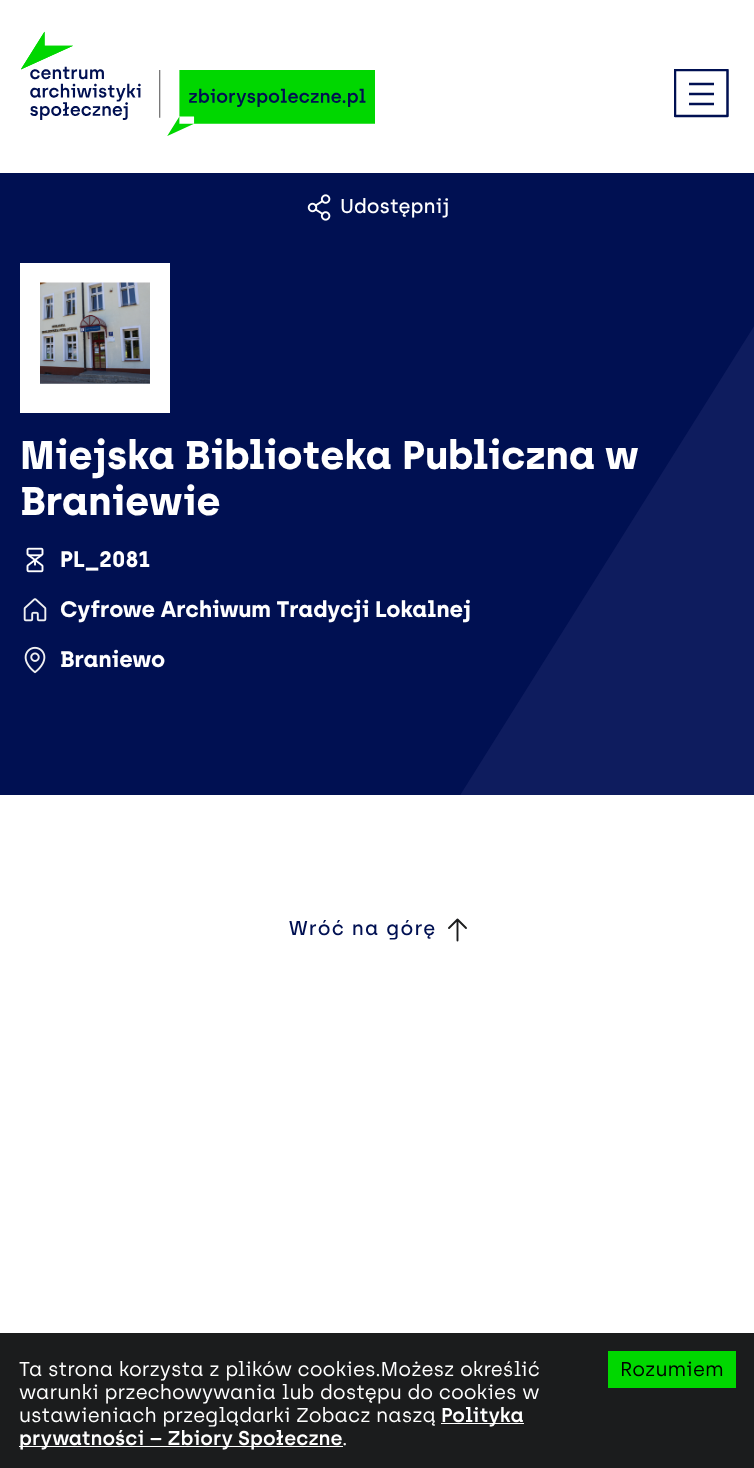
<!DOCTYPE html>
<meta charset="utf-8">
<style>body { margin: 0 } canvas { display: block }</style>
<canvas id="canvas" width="754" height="1468"></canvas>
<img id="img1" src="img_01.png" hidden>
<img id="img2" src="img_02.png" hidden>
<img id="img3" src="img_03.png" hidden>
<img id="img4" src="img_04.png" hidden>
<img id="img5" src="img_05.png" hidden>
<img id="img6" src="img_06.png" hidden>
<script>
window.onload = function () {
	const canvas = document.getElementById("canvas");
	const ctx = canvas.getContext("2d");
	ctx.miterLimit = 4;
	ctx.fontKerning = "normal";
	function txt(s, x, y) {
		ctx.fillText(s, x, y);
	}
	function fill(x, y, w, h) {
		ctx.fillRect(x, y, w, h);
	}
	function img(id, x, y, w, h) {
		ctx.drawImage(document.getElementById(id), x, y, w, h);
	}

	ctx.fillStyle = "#FFFFFF";
	fill(0, 0, 754, 1468);
	img("img1", 21, 31, 354, 105);
	ctx.save();
	ctx.beginPath();
	ctx.rect(674, 69, 55, 49);
	ctx.clip();
	ctx.beginPath();
	ctx.moveTo(727.5, 70);
	ctx.lineTo(675, 70);
	ctx.lineTo(675, 116);
	ctx.lineTo(727.5, 116);
	ctx.closePath();
	ctx.strokeStyle = "#001052";
	ctx.lineWidth = 2.5;
	ctx.lineJoin = "round";
	ctx.stroke();
	ctx.restore();
	ctx.beginPath();
	ctx.moveTo(689, 84);
	ctx.lineTo(714, 84);
	ctx.moveTo(689, 94);
	ctx.lineTo(714, 94);
	ctx.moveTo(689, 104);
	ctx.lineTo(714, 104);
	ctx.strokeStyle = "#001052";
	ctx.lineWidth = 2.5;
	ctx.stroke();
	ctx.fillStyle = "#001052";
	fill(0, 173, 754, 622);
	img("img2", 307, 194, 24, 27);
	ctx.fillStyle = "#FFFFFF";
	fill(20, 263, 150, 150);
	img("img3", 40, 282, 110, 102);
	img("img4", 26, 547, 18, 26);
	img("img5", 23, 598, 24, 24);
	img("img6", 24, 646, 22, 28);
	ctx.beginPath();
	ctx.moveTo(457.5, 940.5);
	ctx.lineTo(457.5, 919.5);
	ctx.moveTo(449, 928);
	ctx.lineTo(457.5, 919.5);
	ctx.lineTo(466, 928);
	ctx.strokeStyle = "#1B1C1D";
	ctx.lineWidth = 1.9;
	ctx.lineCap = "round";
	ctx.lineJoin = "round";
	ctx.stroke();
	ctx.fillStyle = "#1B1C1D";
	fill(0, 1333, 754, 135);
	ctx.fillStyle = "#FFFFFF";
	fill(441, 1423, 83, 1);
	fill(19, 1446, 324, 1);
	ctx.fillStyle = "#00D700";
	fill(608, 1351, 128, 37);
	ctx.font = "500 20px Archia";
	ctx.fillStyle = "#FFFFFF";
	txt("Udostępnij", 340, 213);
	ctx.font = "bold 40px Archia";
	txt("Miejska Biblioteka Publiczna w", 20, 469);
	txt("Braniewie", 20, 515);
	ctx.font = "bold 22.5px Archia";
	txt("PL_2081", 60, 567);
	txt("Cyfrowe Archiwum Tradycji Lokalnej", 60, 617);
	txt("Braniewo", 60, 667);
	ctx.save();
	ctx.beginPath();
	ctx.rect(31, 298, 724, 497);
	ctx.clip();
	ctx.fillStyle = "#0E1C5E";
	ctx.beginPath();
	ctx.moveTo(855, 165);
	ctx.lineTo(31, 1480);
	ctx.lineTo(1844, 658);
	ctx.lineTo(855, 658);
	ctx.closePath();
	ctx.fill();
	ctx.restore();
	ctx.letterSpacing = "1.25px";
	ctx.font = "500 20px Archia";
	ctx.fillStyle = "#001052";
	txt("Wróć na górę", 289, 935);
	ctx.letterSpacing = "0px";
	ctx.font = "20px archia";
	ctx.fillStyle = "#FFFFFF";
	txt("Ta strona korzysta z plików cookies.Możesz określić", 19, 1376);
	txt("warunki przechowywania lub dostępu do cookies w", 19, 1399);
	txt("ustawieniach przeglądarki Zobacz naszą", 19, 1422);
	ctx.font = "600 20px Archia";
	txt("Polityka", 441, 1422);
	txt("prywatności – Zbiory Społeczne", 19, 1445);
	ctx.font = "20px archia";
	txt(".", 342, 1445);
	ctx.fillStyle = "#000000";
	txt("Rozumiem", 620, 1376);
};
</script>
